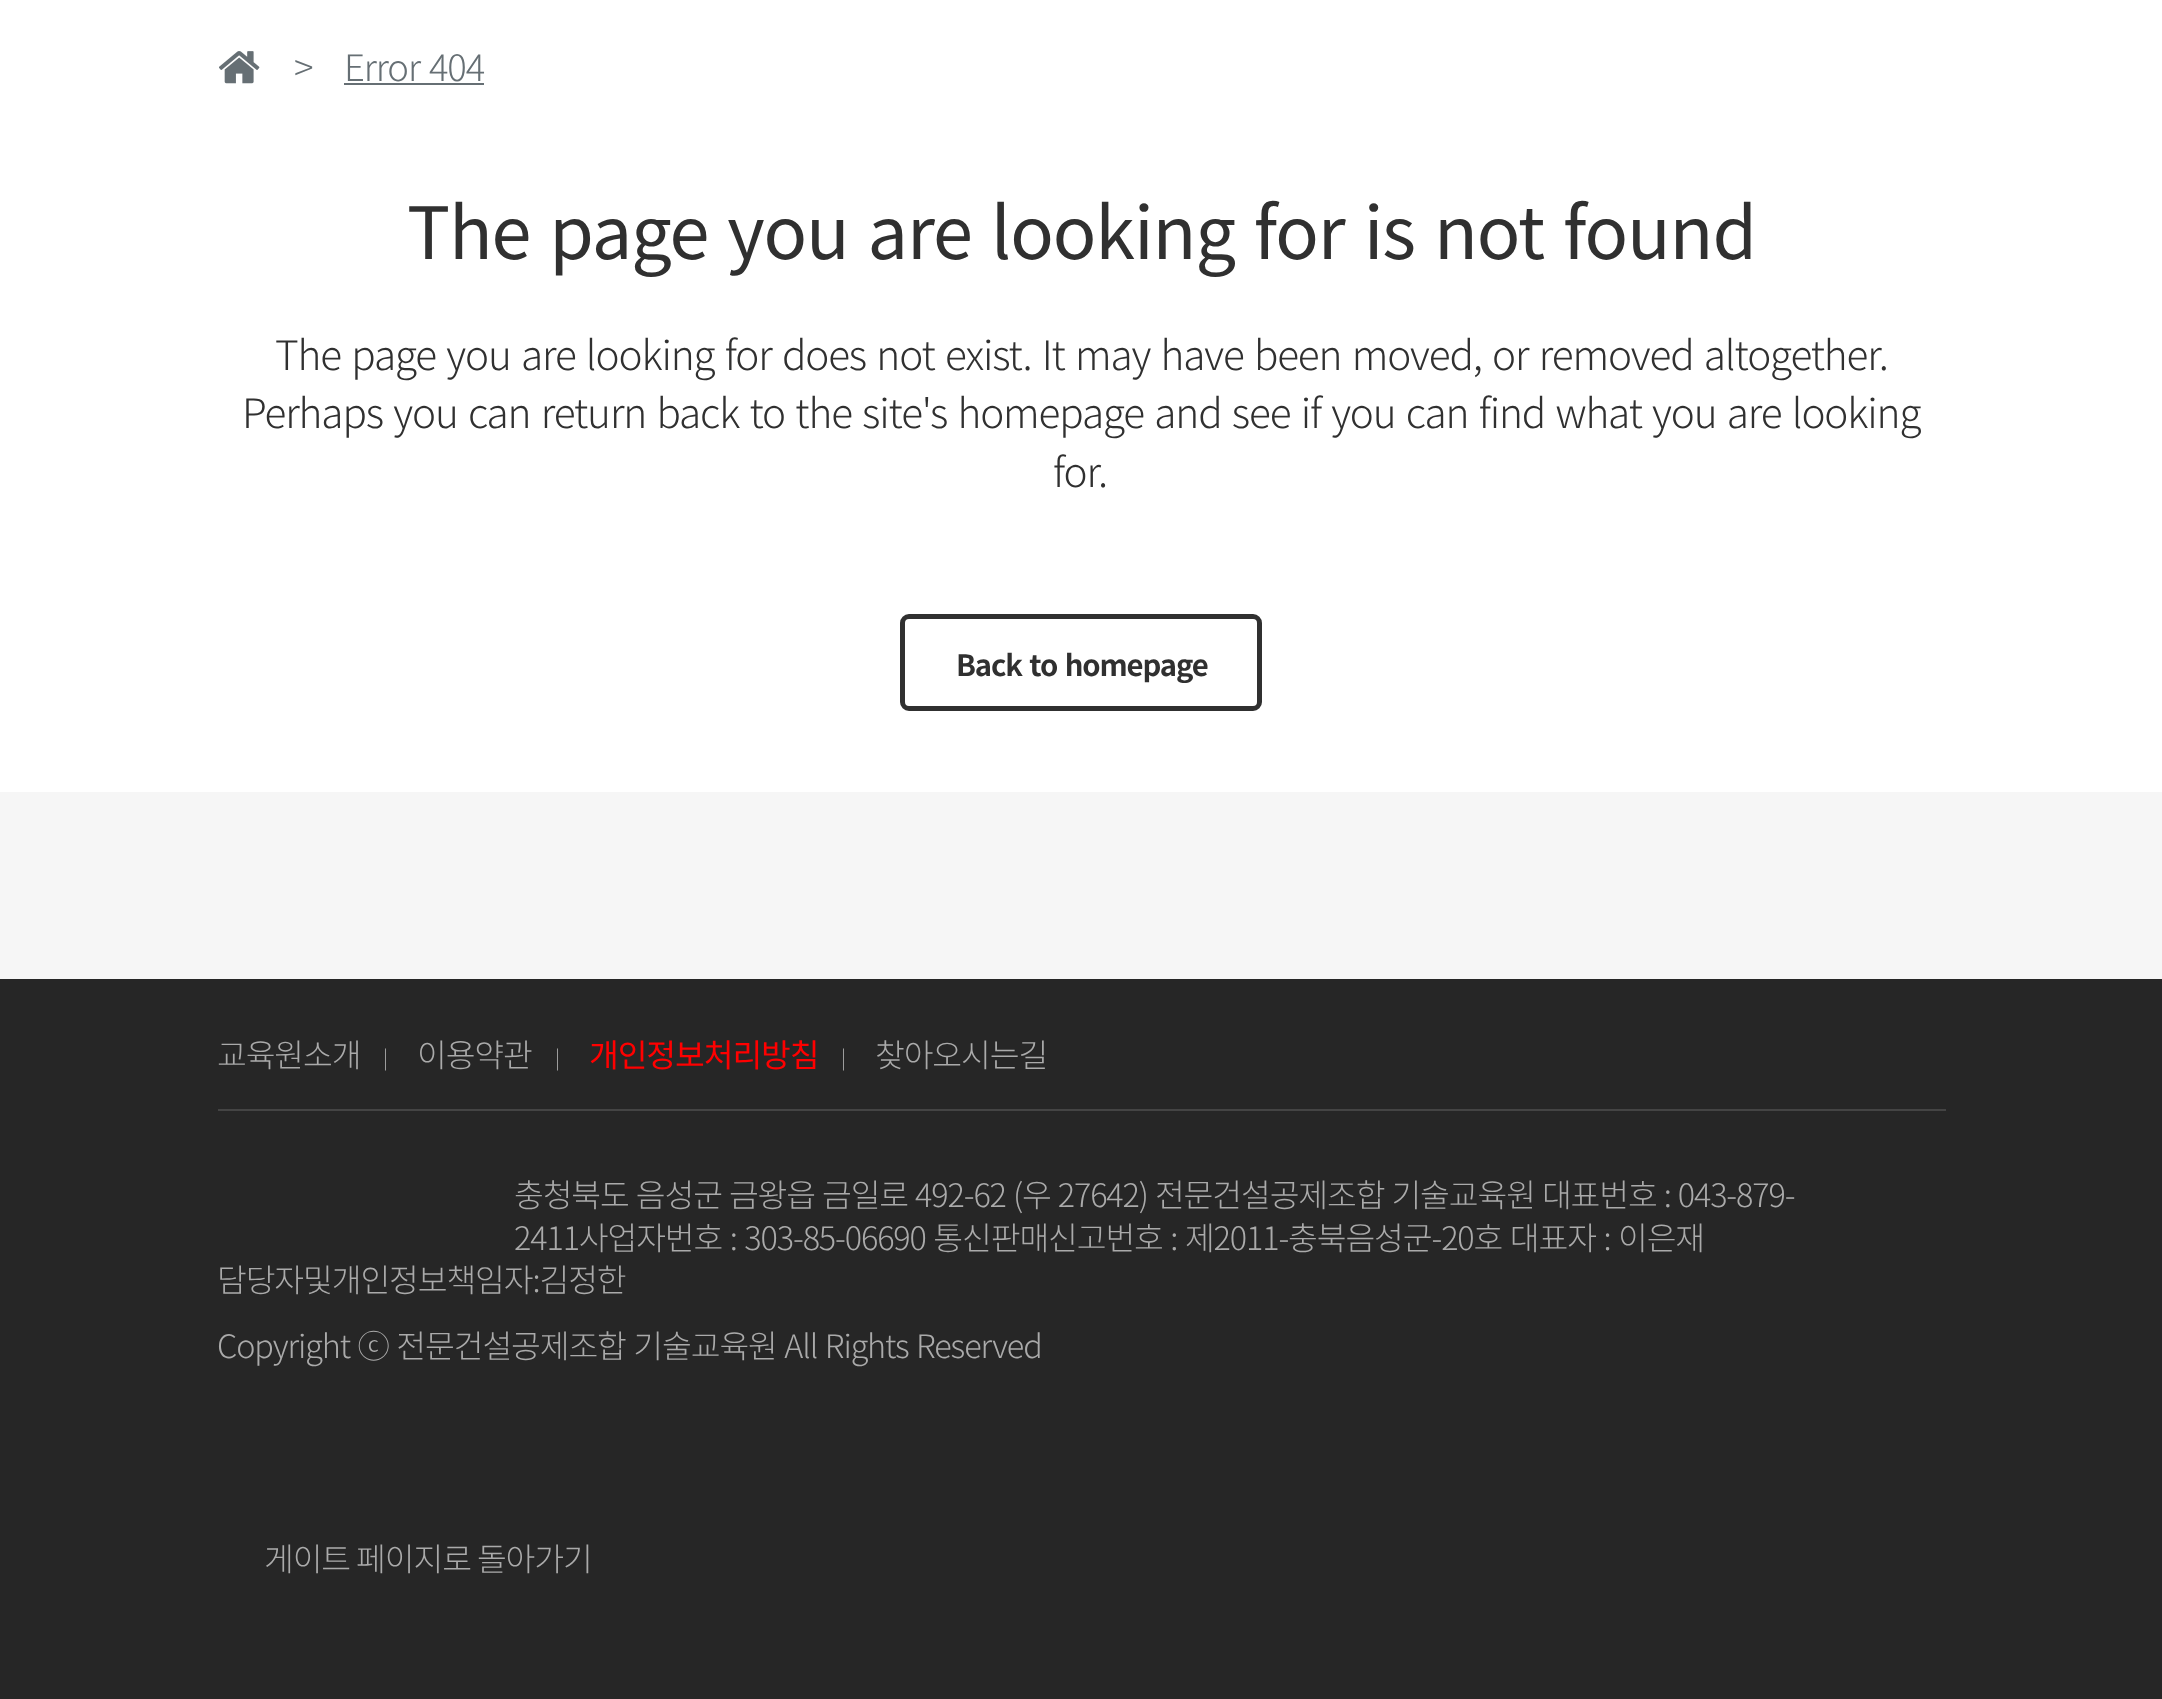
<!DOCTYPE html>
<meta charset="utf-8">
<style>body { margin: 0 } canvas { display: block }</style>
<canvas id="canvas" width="2162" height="1699"></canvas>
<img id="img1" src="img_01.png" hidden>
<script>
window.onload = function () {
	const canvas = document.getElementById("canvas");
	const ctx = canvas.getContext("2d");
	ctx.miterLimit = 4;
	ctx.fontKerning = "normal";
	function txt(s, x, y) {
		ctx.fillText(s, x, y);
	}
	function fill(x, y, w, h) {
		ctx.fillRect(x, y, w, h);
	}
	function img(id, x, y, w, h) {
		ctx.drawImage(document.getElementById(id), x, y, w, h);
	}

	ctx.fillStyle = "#F6F6F6";
	fill(0, 0, 2162, 1699);
	ctx.fillStyle = "#FFFFFF";
	fill(0, 0, 2162, 792);
	img("img1", 219, 51, 41, 33);
	ctx.fillStyle = "#666F74";
	fill(344, 83, 140, 2);
	ctx.beginPath();
	ctx.roundRect(902.5, 616.5, 357, 92, 6.5);
	ctx.strokeStyle = "#303030";
	ctx.lineWidth = 5;
	ctx.stroke();
	ctx.fillStyle = "#262626";
	fill(0, 979, 2162, 720);
	ctx.fillStyle = "#444444";
	fill(218, 1109, 1728, 2);
	ctx.letterSpacing = "-1.12px";
	ctx.font = "300 36.5px Noto Sans KR";
	ctx.fillStyle = "#666F74";
	txt(">", 294, 81);
	ctx.wordSpacing = "2px";
	txt("Error 404", 344, 81);
	ctx.wordSpacing = "4px";
	ctx.font = "72px Noto Sans KR";
	ctx.fillStyle = "#303030";
	txt("The page you are looking for is not found", 407, 259);
	ctx.wordSpacing = "2.4px";
	ctx.font = "300 40.5px Noto Sans KR";
	txt("The page you are looking for does not exist. It may have been moved, or removed altogether.", 275, 370);
	txt("Perhaps you can return back to the site's homepage and see if you can find what you are looking", 242, 428);
	ctx.wordSpacing = "0px";
	txt("for.", 1053, 487);
	ctx.wordSpacing = "2px";
	ctx.font = "bold 29.25px Noto Sans KR";
	txt("Back to homepage", 956, 676);
	ctx.wordSpacing = "0px";
	ctx.font = "300 32.4px Noto Sans KR";
	ctx.fillStyle = "#AAAAAA";
	txt("교육원소개", 217, 1067);
	ctx.font = "300 20px Noto Sans KR";
	txt("|", 383, 1065);
	ctx.font = "300 32.4px Noto Sans KR";
	txt("이용약관", 417, 1067);
	ctx.font = "300 20px Noto Sans KR";
	txt("|", 555, 1065);
	ctx.font = "32.4px Noto Sans KR";
	ctx.fillStyle = "#FF0000";
	txt("개인정보처리방침", 589, 1067);
	ctx.font = "300 20px Noto Sans KR";
	ctx.fillStyle = "#AAAAAA";
	txt("|", 841, 1065);
	ctx.font = "300 32.4px Noto Sans KR";
	txt("찾아오시는길", 875, 1067);
	ctx.wordSpacing = "1px";
	txt("충청북도 음성군 금왕읍 금일로 492-62 (우 27642) 전문건설공제조합 기술교육원 대표번호 : 043-879-", 514, 1207);
	ctx.wordSpacing = "1.5px";
	txt("2411사업자번호 : 303-85-06690 통신판매신고번호 : 제2011-충북음성군-20호 대표자 : 이은재", 514, 1250);
	ctx.wordSpacing = "0px";
	txt("담당자및개인정보책임자:김정한", 217, 1292);
	ctx.wordSpacing = "1.5px";
	txt("Copyright ⓒ 전문건설공제조합 기술교육원 All Rights Reserved", 217, 1358);
	ctx.wordSpacing = "0px";
	txt("게이트 페이지로 돌아가기", 264, 1571);
};
</script>
